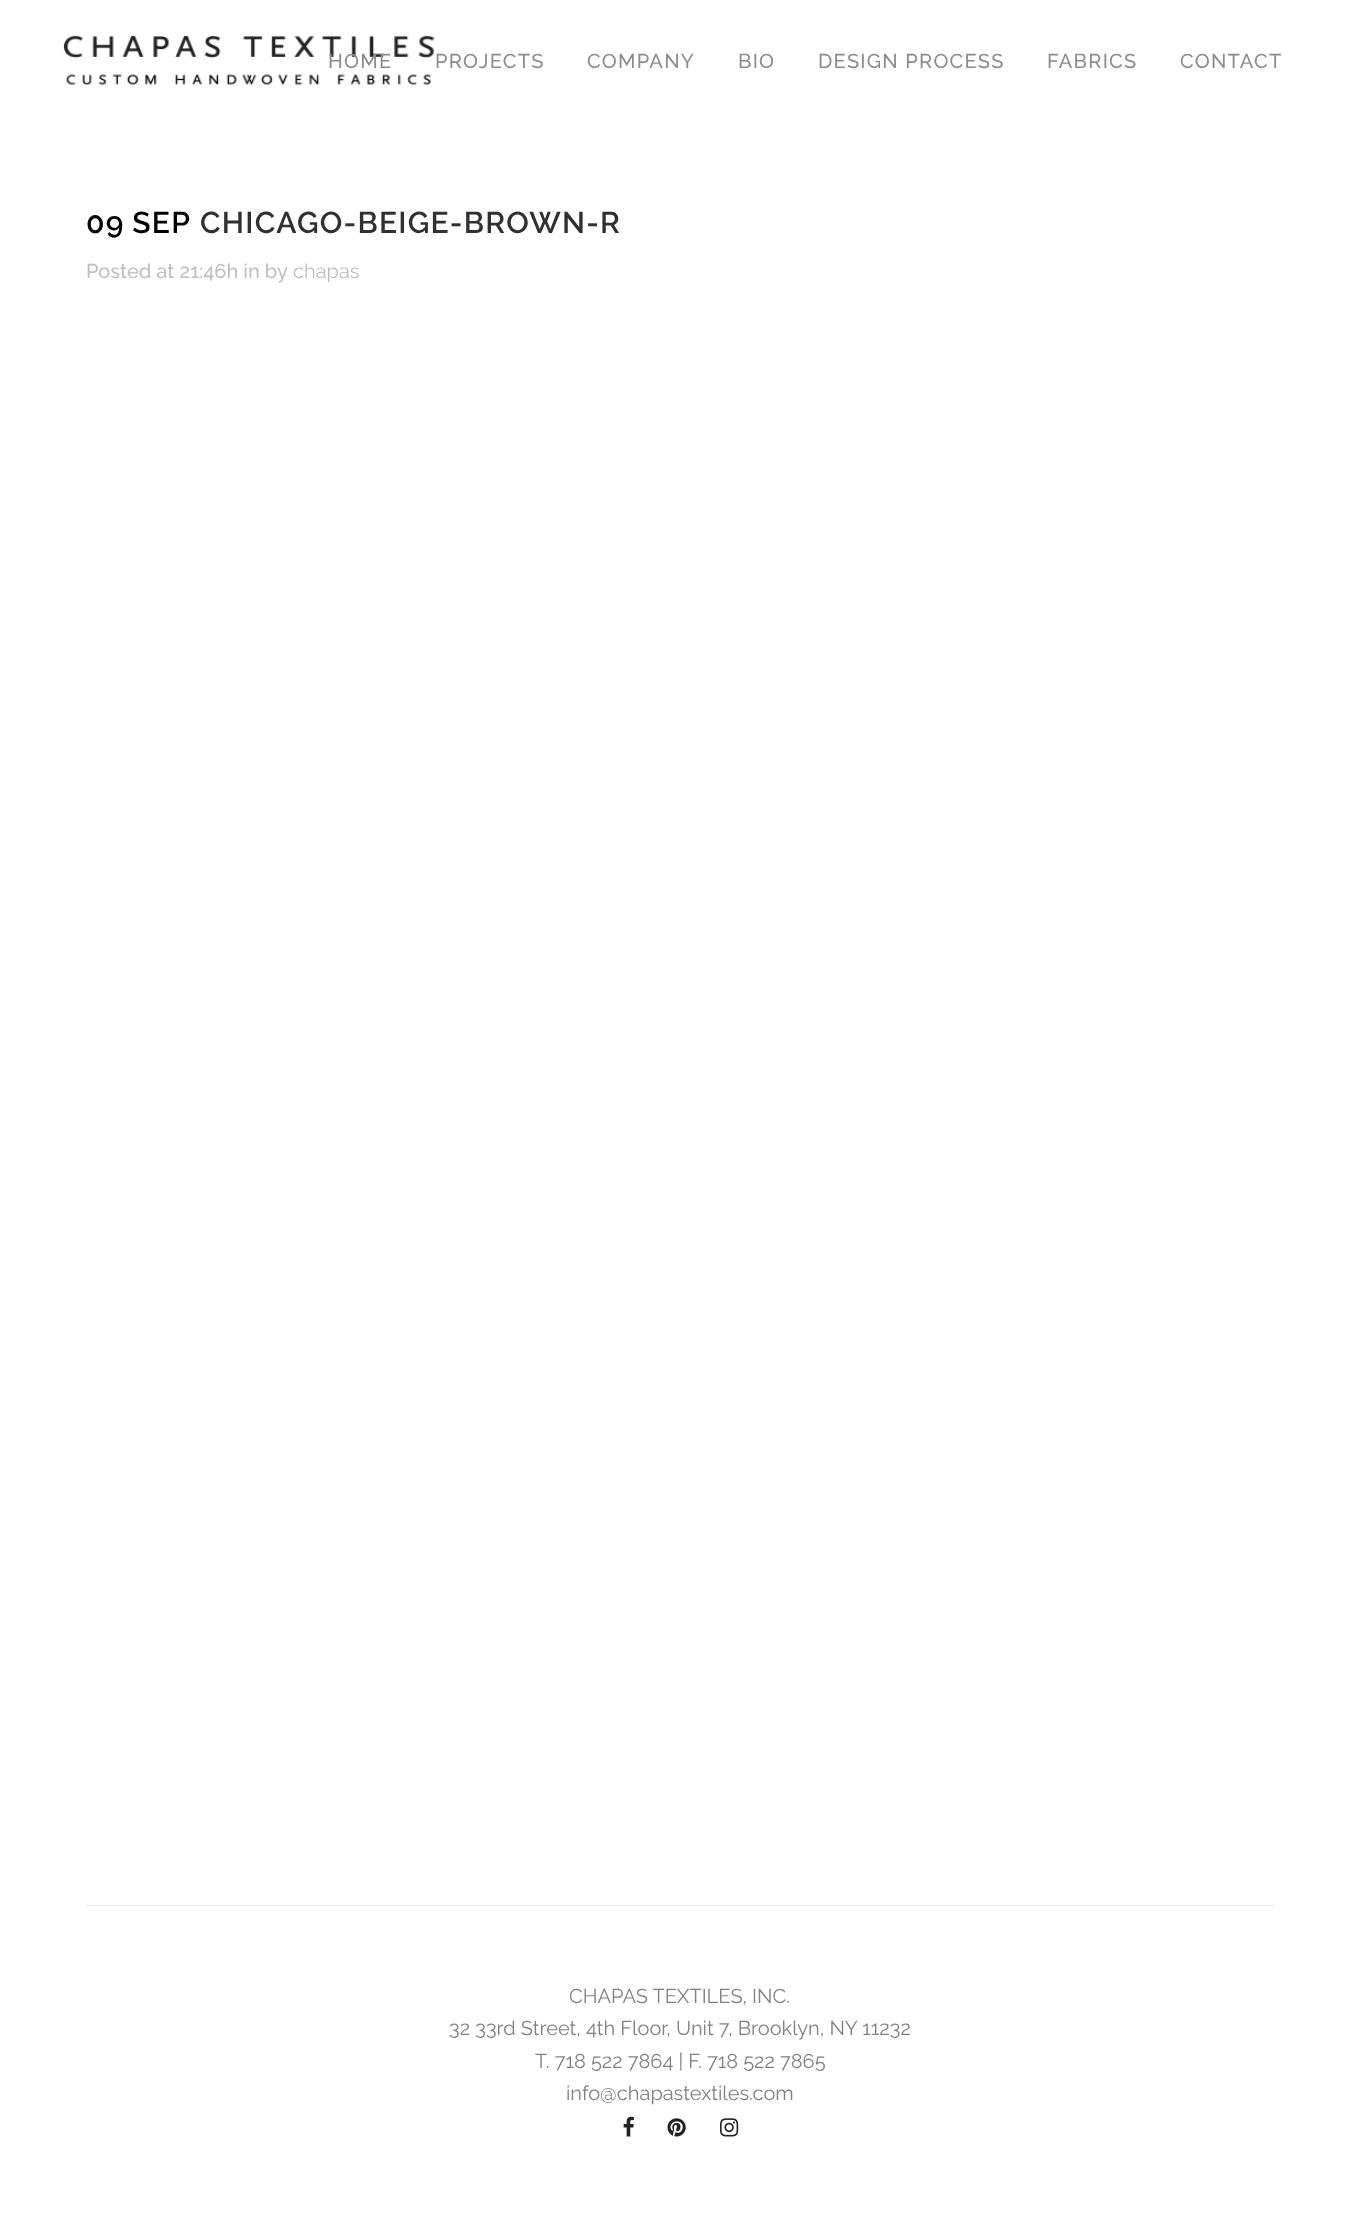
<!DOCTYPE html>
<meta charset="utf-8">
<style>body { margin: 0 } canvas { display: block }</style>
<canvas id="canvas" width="1360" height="2216"></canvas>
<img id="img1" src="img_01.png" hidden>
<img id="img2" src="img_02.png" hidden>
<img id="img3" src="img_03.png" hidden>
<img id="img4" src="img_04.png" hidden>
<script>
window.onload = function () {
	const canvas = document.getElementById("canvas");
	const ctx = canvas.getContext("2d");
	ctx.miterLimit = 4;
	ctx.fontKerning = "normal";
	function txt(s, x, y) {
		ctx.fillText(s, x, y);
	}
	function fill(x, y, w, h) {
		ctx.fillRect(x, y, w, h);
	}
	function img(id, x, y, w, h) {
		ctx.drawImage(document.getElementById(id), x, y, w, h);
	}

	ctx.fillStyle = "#FFFFFF";
	fill(0, 0, 1360, 2216);
	img("img1", 63, 35, 372, 50);
	ctx.fillStyle = "#EAEAEA";
	fill(86, 1905, 1188, 1);
	img("img2", 623, 2116, 11, 21);
	img("img3", 667, 2118, 19, 19);
	img("img4", 720, 2118, 19, 19);
	ctx.letterSpacing = "1.25px";
	ctx.font = "500 20px Raleway";
	ctx.fillStyle = "#8C8C8C";
	txt("HOME", 328, 68);
	txt("PROJECTS", 435, 68);
	txt("COMPANY", 587, 68);
	txt("BIO", 738, 68);
	txt("DESIGN PROCESS", 818, 68);
	txt("FABRICS", 1047, 68);
	txt("CONTACT", 1180, 68);
	ctx.wordSpacing = "-1px";
	ctx.font = "600 30px Raleway";
	ctx.fillStyle = "#000000";
	txt("09 SEP", 86, 233);
	ctx.wordSpacing = "0px";
	ctx.fillStyle = "#303030";
	txt("CHICAGO-BEIGE-BROWN-R", 200, 233);
	ctx.letterSpacing = "0px";
	ctx.font = "500 20px Raleway";
	ctx.fillStyle = "#BEBEBE";
	txt("Posted at 21:46h in by", 86, 278);
	ctx.font = "20px Raleway";
	txt("chapas", 293, 278);
	ctx.fillStyle = "#818181";
	txt("CHAPAS TEXTILES, INC.", 569, 2003);
	txt("32 33rd Street, 4th Floor, Unit 7, Brooklyn, NY 11232", 449, 2035);
	txt("T. 718 522 7864 | F. 718 522 7865", 535, 2068);
	txt("info@chapastextiles.com", 566, 2100);
};
</script>
